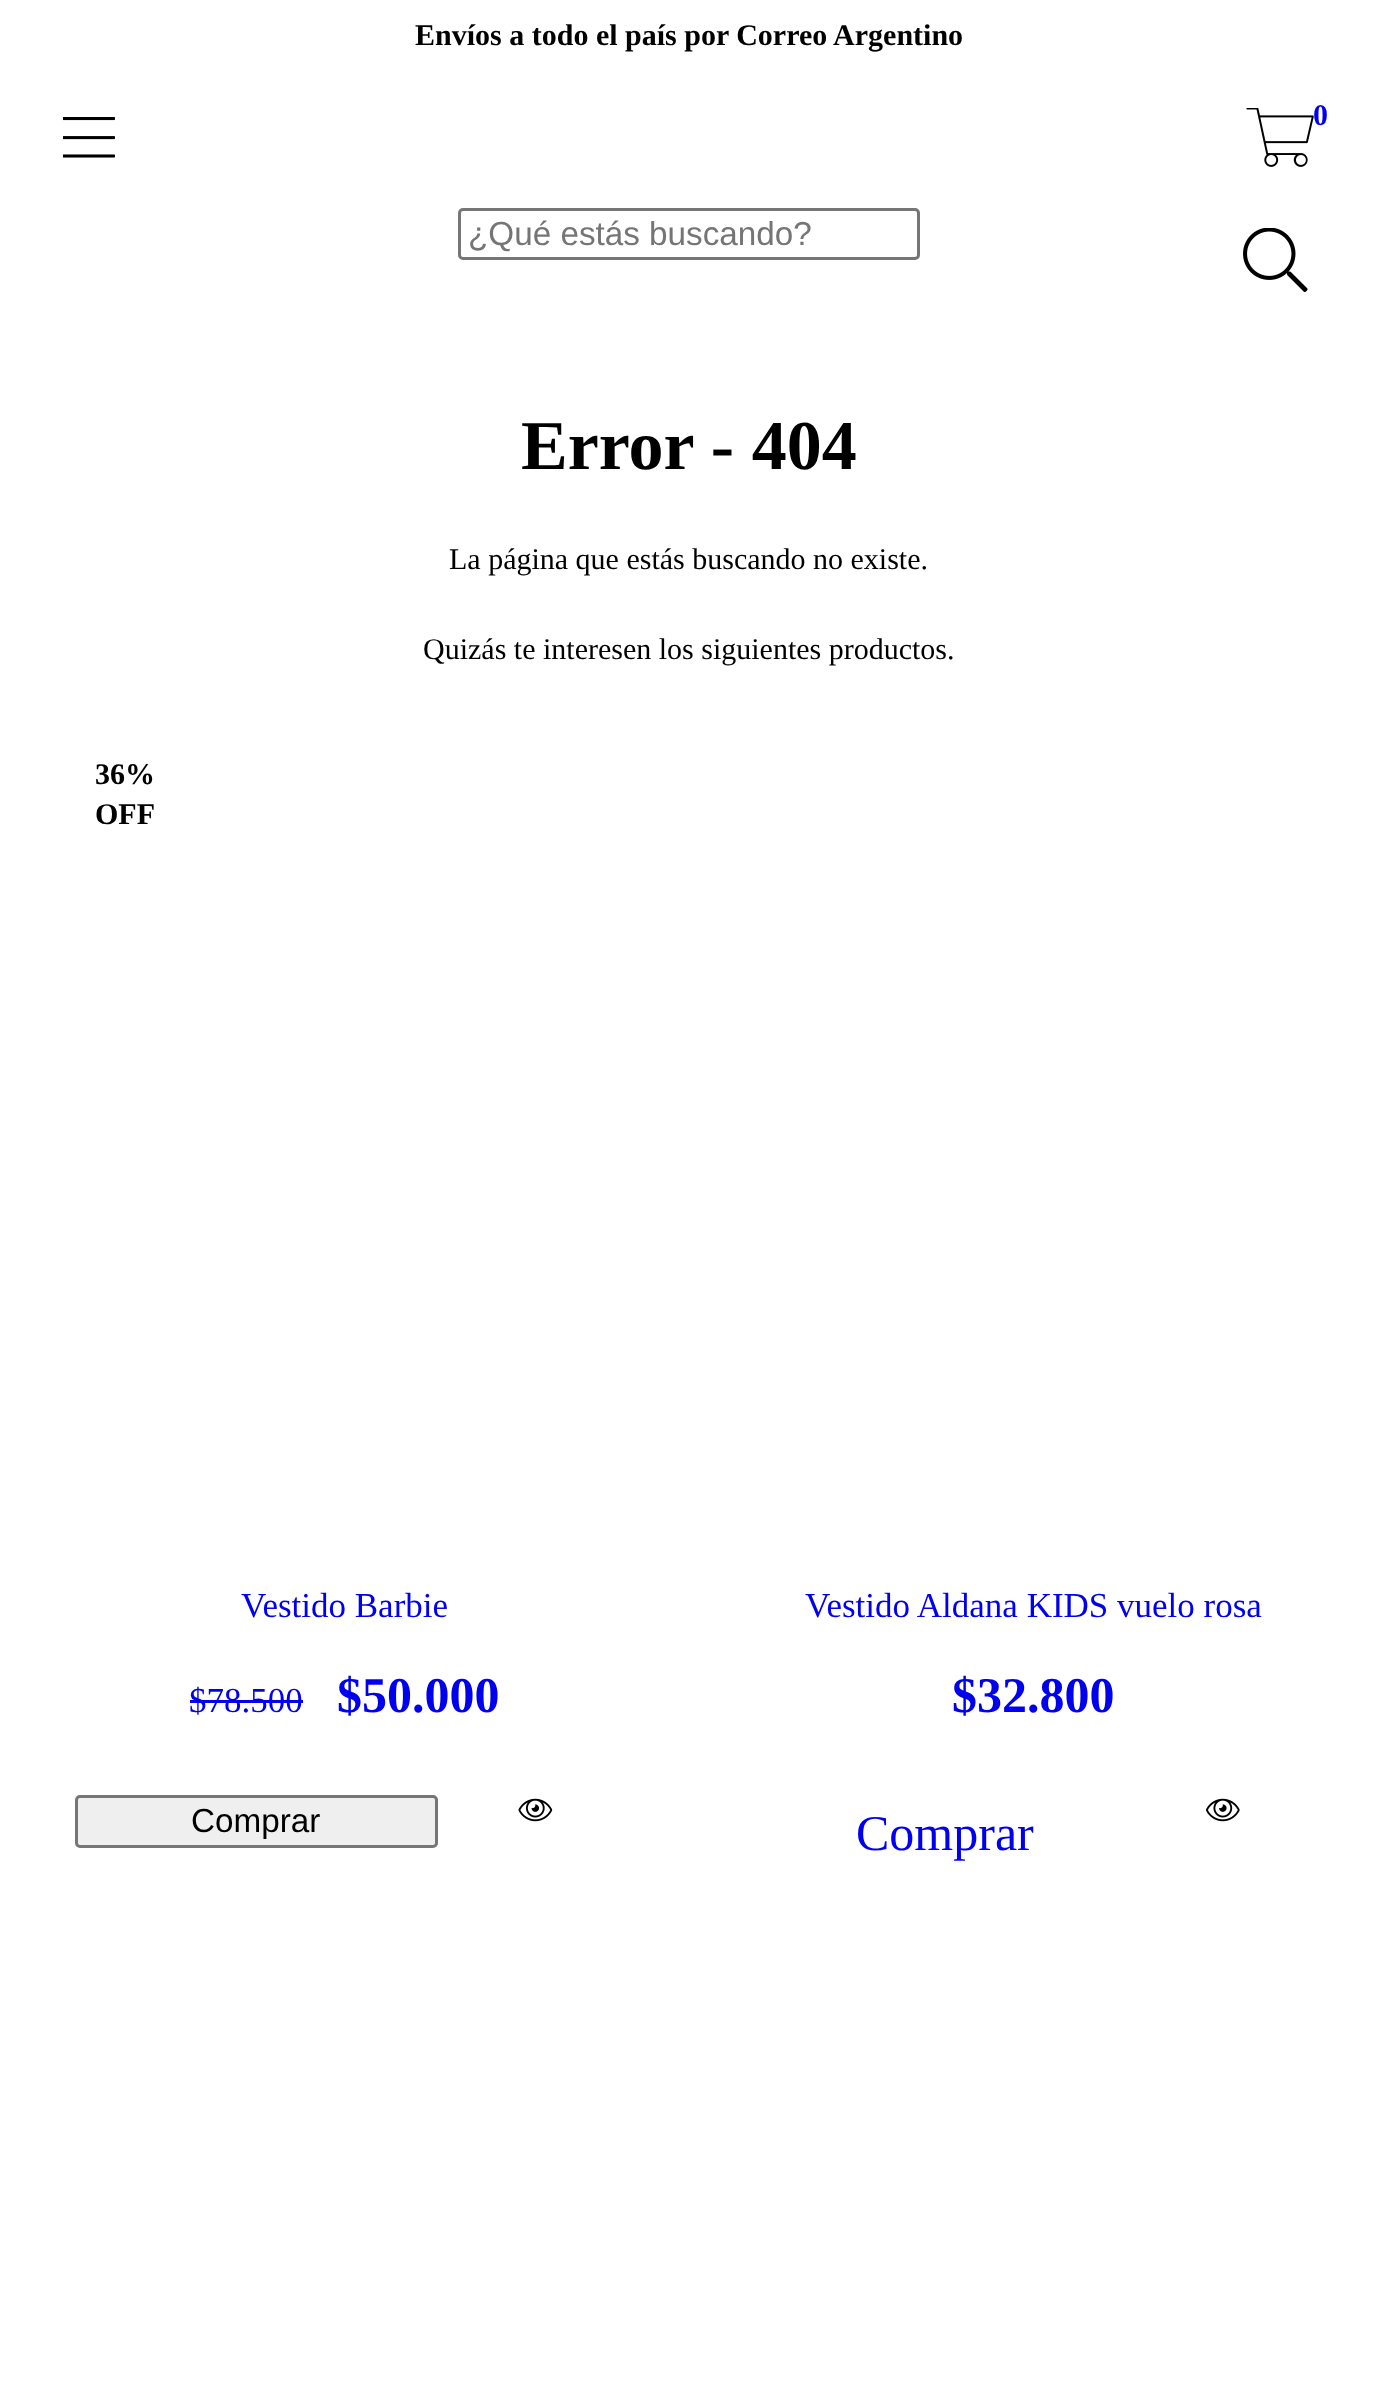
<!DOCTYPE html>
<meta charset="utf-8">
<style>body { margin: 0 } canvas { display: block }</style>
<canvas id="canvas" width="1376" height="2385"></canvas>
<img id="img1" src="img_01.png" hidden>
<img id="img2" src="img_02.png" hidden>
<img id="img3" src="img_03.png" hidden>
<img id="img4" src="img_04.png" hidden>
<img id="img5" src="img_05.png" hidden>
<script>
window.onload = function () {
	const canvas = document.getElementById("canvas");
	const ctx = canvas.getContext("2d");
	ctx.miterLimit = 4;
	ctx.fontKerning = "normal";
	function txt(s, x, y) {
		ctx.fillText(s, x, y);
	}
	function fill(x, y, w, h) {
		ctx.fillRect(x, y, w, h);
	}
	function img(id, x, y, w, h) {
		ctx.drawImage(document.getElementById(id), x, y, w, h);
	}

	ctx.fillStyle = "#FFFFFF";
	fill(0, 0, 1376, 2385);
	img("img1", 63, 117, 52, 41);
	img("img2", 1246, 108, 68, 59);
	ctx.beginPath();
	ctx.roundRect(459.5, 209.5, 459, 49, 3.5);
	ctx.strokeStyle = "#767676";
	ctx.lineWidth = 3;
	ctx.stroke();
	img("img3", 1243, 228, 65, 64);
	ctx.fillStyle = "#0000EE";
	fill(190, 1700, 113, 3);
	ctx.fillStyle = "#EFEFEF";
	ctx.beginPath();
	ctx.roundRect(76.5, 1796.5, 360, 50, 3.5);
	ctx.fill();
	ctx.stroke();
	img("img4", 518, 1798, 35, 24);
	img("img5", 1206, 1798, 34, 24);
	ctx.font = "bold 30px Liberation Serif";
	ctx.fillStyle = "#000000";
	txt("Envíos a todo el país por Correo Argentino", 415, 45);
	ctx.fillStyle = "#0000EE";
	txt("0", 1313, 125);
	ctx.font = "33.25px Liberation Sans";
	ctx.fillStyle = "#757575";
	txt("¿Qué estás buscando?", 468, 245);
	ctx.font = "bold 70px Liberation Serif";
	ctx.fillStyle = "#000000";
	txt("Error - 404", 521, 469);
	ctx.font = "30px Liberation Serif";
	txt("La página que estás buscando no existe.", 449, 569);
	txt("Quizás te interesen los siguientes productos.", 423, 659);
	ctx.font = "bold 30px Liberation Serif";
	txt("36%", 95, 784);
	txt("OFF", 95, 824);
	ctx.font = "35px Liberation Serif";
	ctx.fillStyle = "#0000EE";
	txt("Vestido Barbie", 241, 1617);
	txt("$78.500", 189, 1712);
	ctx.font = "bold 50px Liberation Serif";
	txt("$50.000", 337, 1712);
	ctx.font = "33.25px Liberation Sans";
	ctx.fillStyle = "#000000";
	txt("Comprar", 191, 1832);
	ctx.font = "35px Liberation Serif";
	ctx.fillStyle = "#0000EE";
	txt("Vestido Aldana KIDS vuelo rosa", 805, 1617);
	ctx.font = "bold 50px Liberation Serif";
	txt("$32.800", 952, 1712);
	ctx.font = "50px Liberation Serif";
	txt("Comprar", 856, 1850);
};
</script>
